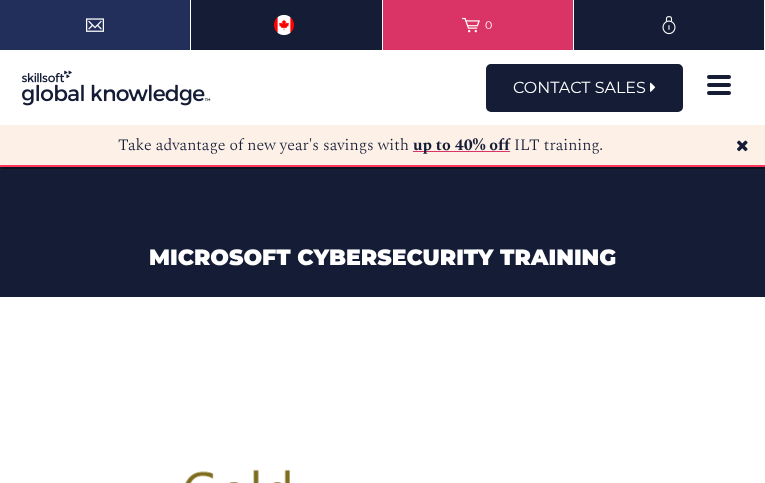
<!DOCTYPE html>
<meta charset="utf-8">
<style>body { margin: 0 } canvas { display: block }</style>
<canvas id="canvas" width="765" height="483"></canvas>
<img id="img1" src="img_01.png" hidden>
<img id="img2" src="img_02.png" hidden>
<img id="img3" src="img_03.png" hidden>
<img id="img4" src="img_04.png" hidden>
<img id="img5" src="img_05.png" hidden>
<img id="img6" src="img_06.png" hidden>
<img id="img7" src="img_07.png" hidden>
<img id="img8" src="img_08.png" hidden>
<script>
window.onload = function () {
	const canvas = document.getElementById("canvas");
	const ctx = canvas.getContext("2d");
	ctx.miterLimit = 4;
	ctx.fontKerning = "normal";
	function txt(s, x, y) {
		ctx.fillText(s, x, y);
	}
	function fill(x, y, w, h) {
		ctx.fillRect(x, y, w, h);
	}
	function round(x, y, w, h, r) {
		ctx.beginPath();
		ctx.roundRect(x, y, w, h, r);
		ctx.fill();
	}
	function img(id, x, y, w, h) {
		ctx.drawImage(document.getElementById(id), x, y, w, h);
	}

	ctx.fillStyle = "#FFFFFF";
	fill(0, 0, 765, 483);
	ctx.fillStyle = "#141C36";
	fill(191, 0, 573, 50);
	ctx.fillStyle = "#222F5B";
	fill(0, 0, 190, 50);
	img("img1", 86, 18, 18, 14);
	ctx.fillStyle = "#FFFFFF";
	fill(382, 0, 1, 50);
	img("img2", 274, 15, 20, 20);
	ctx.fillStyle = "#DA3466";
	fill(383, 0, 190, 50);
	ctx.fillStyle = "#FFFFFF";
	fill(573, 0, 1, 50);
	img("img3", 462, 17, 18, 16);
	img("img4", 662, 16, 14, 19);
	ctx.fillStyle = "#141C36";
	fill(0, 167, 765, 130);
	ctx.fillStyle = "rgba(0, 0, 0, 0.2)";
	ctx.filter = "blur(0.5px)";
	ctx.beginPath();
	ctx.rect(1, 52, 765, 117);
	ctx.fill();
	ctx.filter = "none";
	ctx.fillStyle = "#FFFFFF";
	fill(0, 51, 765, 74);
	img("img5", 21, 70, 190, 36);
	ctx.fillStyle = "#141C36";
	ctx.beginPath();
	ctx.roundRect(487, 65, 195, 46, 4);
	ctx.fill();
	ctx.strokeStyle = "#141C36";
	ctx.lineWidth = 2;
	ctx.stroke();
	img("img6", 650, 82, 6, 10);
	round(707, 83, 24, 4, 2);
	round(707, 75, 24, 4, 2);
	round(707, 91, 24, 4, 2);
	ctx.fillStyle = "rgba(0, 0, 0, 0.2)";
	ctx.filter = "blur(0.5px)";
	ctx.beginPath();
	ctx.rect(1, 127, 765, 42);
	ctx.fill();
	ctx.filter = "none";
	ctx.fillStyle = "#FDF0E6";
	fill(0, 125, 765, 40);
	ctx.fillStyle = "#FF375A";
	fill(0, 165, 765, 2);
	ctx.fillStyle = "#DA3466";
	fill(413, 151, 97, 1);
	img("img7", 737, 140, 11, 12);
	img("img8", 185, 469, 105, 14);
	ctx.font = "11px Montserrat";
	ctx.fillStyle = "#FFFFFF";
	txt("0", 485, 29);
	ctx.font = "16px Montserrat";
	txt("CONTACT SALES", 513, 93);
	ctx.font = "300 16px Spectral";
	ctx.fillStyle = "#141C36";
	txt("Take advantage of new year's savings with", 118, 150);
	ctx.font = "bold 16px Spectral";
	txt("up to 40% off", 413, 150);
	ctx.font = "300 16px Spectral";
	txt("ILT training.", 514, 150);
	ctx.font = "900 22px Montserrat";
	ctx.fillStyle = "#FFFFFF";
	txt("MICROSOFT CYBERSECURITY TRAINING", 149, 265);
};
</script>
